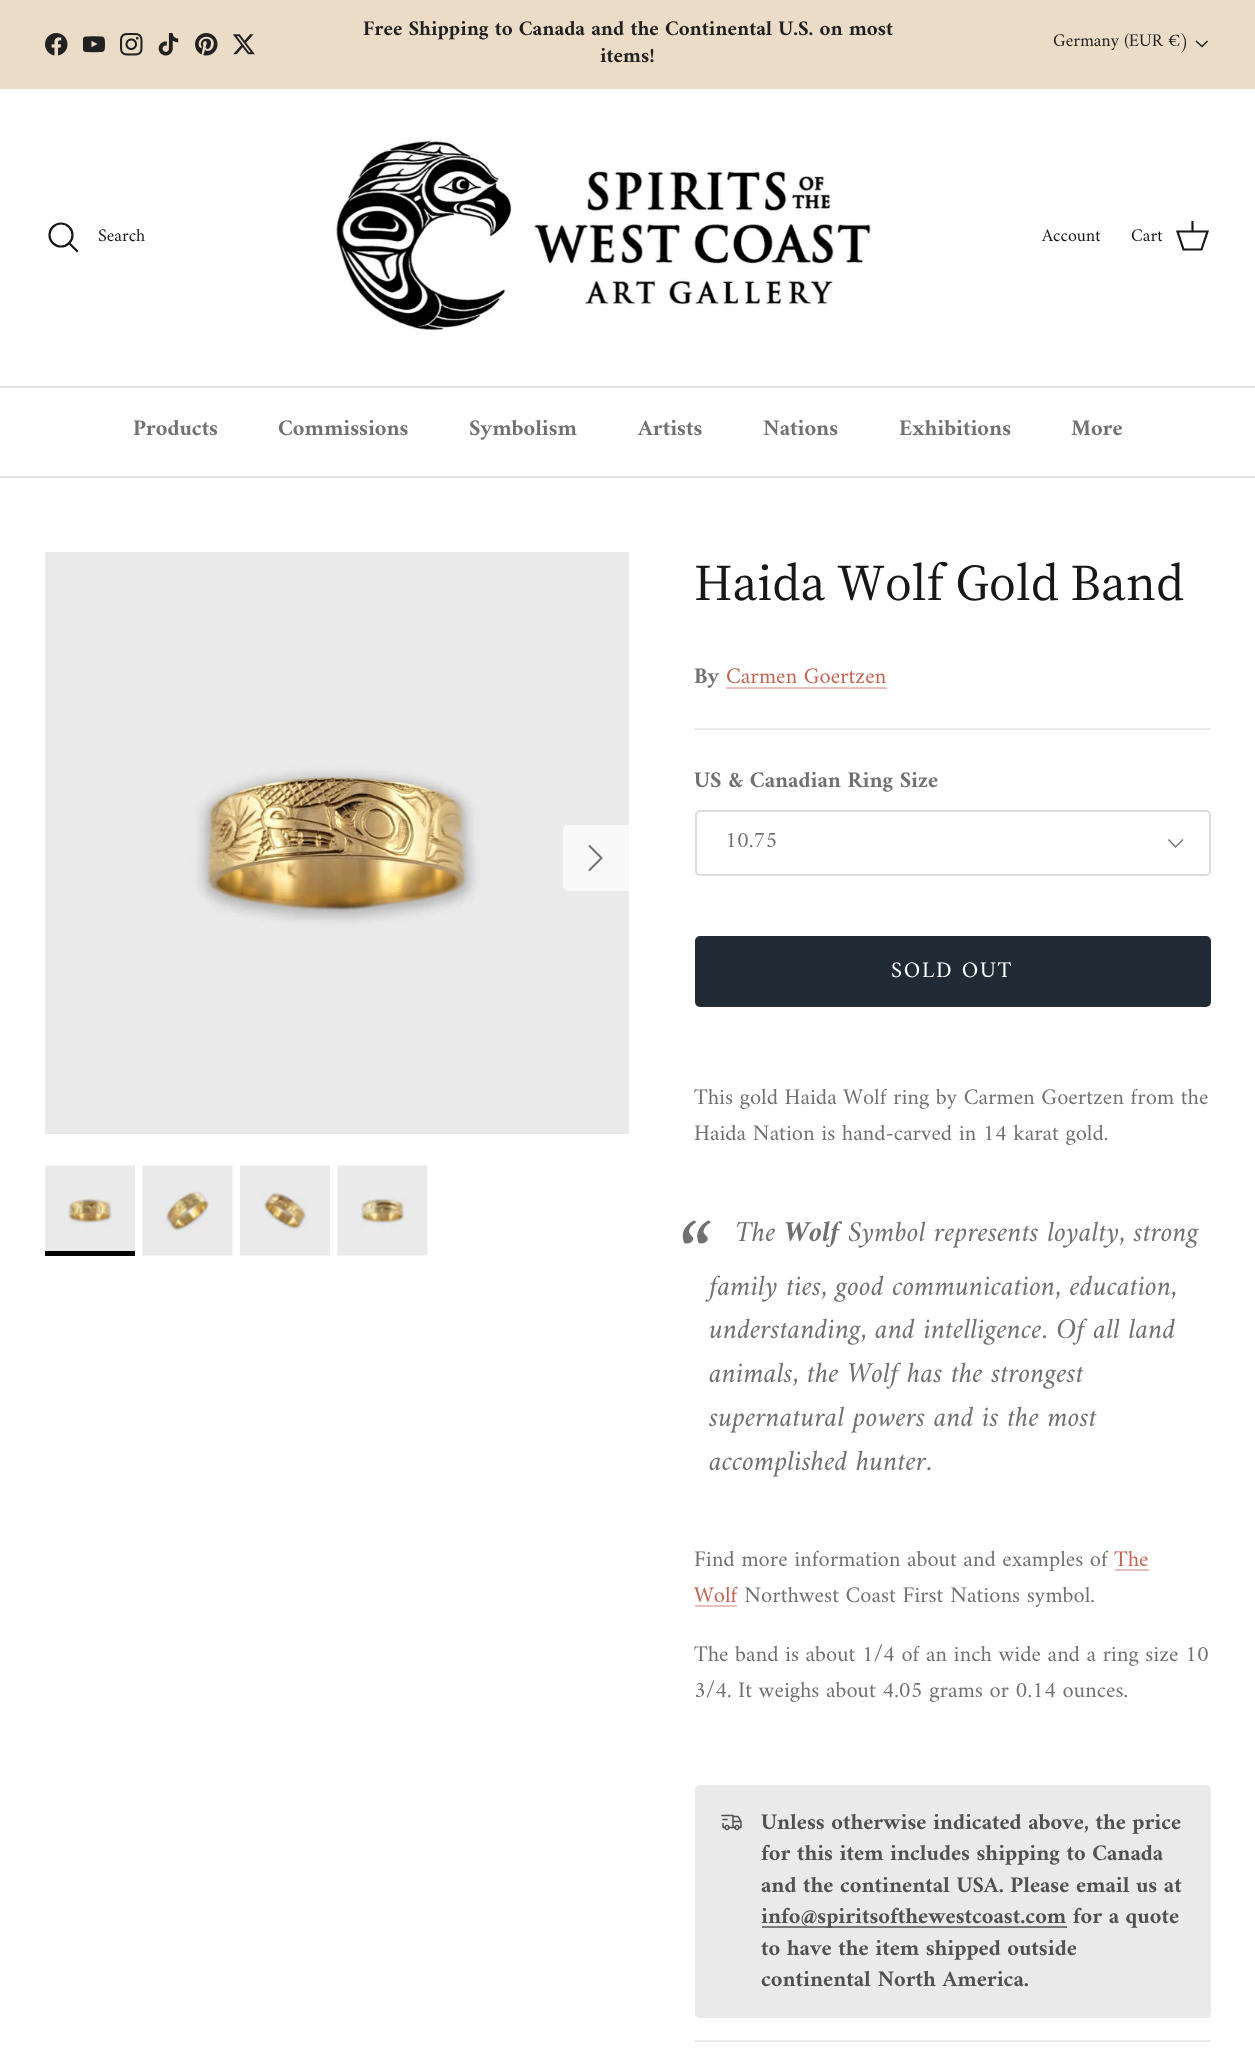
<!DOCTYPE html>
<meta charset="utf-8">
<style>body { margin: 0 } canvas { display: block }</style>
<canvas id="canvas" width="1255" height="2048"></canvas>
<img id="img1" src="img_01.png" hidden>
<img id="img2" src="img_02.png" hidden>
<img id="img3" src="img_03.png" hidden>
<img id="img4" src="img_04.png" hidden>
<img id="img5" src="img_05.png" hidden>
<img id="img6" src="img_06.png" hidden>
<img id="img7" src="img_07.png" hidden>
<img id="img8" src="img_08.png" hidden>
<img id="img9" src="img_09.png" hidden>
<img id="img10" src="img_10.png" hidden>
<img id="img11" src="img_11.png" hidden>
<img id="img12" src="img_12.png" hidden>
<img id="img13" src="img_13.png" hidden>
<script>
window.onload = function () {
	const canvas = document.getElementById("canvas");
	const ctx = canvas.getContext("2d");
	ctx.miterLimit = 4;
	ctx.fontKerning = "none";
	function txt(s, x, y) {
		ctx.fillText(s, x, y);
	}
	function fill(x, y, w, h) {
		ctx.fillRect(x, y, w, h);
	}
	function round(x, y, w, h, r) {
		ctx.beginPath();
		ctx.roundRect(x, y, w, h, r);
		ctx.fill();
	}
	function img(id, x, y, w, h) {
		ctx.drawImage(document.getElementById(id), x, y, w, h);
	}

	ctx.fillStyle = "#FFFFFF";
	fill(0, 0, 1255, 2048);
	ctx.fillStyle = "#EADCC6";
	fill(0, 0, 1255, 89);
	img("img1", 45, 33, 23, 23);
	img("img2", 83, 36, 22, 17);
	img("img3", 120, 33, 23, 23);
	img("img4", 158, 33, 21, 23);
	img("img5", 195, 33, 23, 23);
	img("img6", 233, 34, 22, 21);
	ctx.beginPath();
	ctx.moveTo(1207.5, 41);
	ctx.lineTo(1202, 46.5);
	ctx.lineTo(1196, 41);
	ctx.strokeStyle = "#212121";
	ctx.lineWidth = 1.5;
	ctx.stroke();
	ctx.fillStyle = "#DFE3E8";
	fill(0, 386, 1255, 2);
	ctx.beginPath();
	ctx.arc(61, 235, 11.5, 0, Math.PI * 2);
	ctx.strokeStyle = "#171717";
	ctx.lineWidth = 2.2;
	ctx.stroke();
	ctx.beginPath();
	ctx.moveTo(70.5, 244.5);
	ctx.lineTo(77, 251);
	ctx.lineCap = "square";
	ctx.stroke();
	img("img7", 335, 139, 537, 193);
	ctx.beginPath();
	ctx.moveTo(1177.5, 231.5);
	ctx.lineTo(1207.5, 231.5);
	ctx.lineTo(1201.5, 249.5);
	ctx.lineTo(1183.5, 249.5);
	ctx.closePath();
	ctx.lineCap = "butt";
	ctx.stroke();
	ctx.beginPath();
	ctx.moveTo(1192.5, 231);
	ctx.lineTo(1192.5, 222);
	ctx.lineCap = "square";
	ctx.stroke();
	fill(0, 476, 1255, 2);
	img("img8", 45, 552, 584, 582);
	ctx.fillStyle = "#F9F9F9";
	ctx.beginPath();
	ctx.roundRect(563, 825, 66, 66, [5, 0, 0, 5]);
	ctx.fill();
	ctx.beginPath();
	ctx.moveTo(589.5, 870);
	ctx.lineTo(601.5, 858);
	ctx.lineTo(589.5, 846);
	ctx.strokeStyle = "#707173";
	ctx.lineWidth = 2;
	ctx.lineCap = "round";
	ctx.lineJoin = "round";
	ctx.stroke();
	img("img9", 45, 1165, 90, 86);
	ctx.fillStyle = "#000000";
	fill(45, 1251, 90, 5);
	img("img10", 142, 1165, 91, 91);
	img("img11", 240, 1165, 90, 91);
	img("img12", 337, 1165, 91, 91);
	ctx.fillStyle = "#E6C1BA";
	fill(726, 687, 161, 2);
	ctx.fillStyle = "#EBEBEB";
	fill(695, 728, 516, 2);
	ctx.beginPath();
	ctx.roundRect(696, 811, 514, 64, 4);
	ctx.strokeStyle = "#DBDCDC";
	ctx.lineJoin = "miter";
	ctx.stroke();
	ctx.beginPath();
	ctx.moveTo(1183, 839.5);
	ctx.lineTo(1175.5, 847);
	ctx.lineTo(1168.5, 839.5);
	ctx.strokeStyle = "#707173";
	ctx.lineWidth = 1.4;
	ctx.lineCap = "butt";
	ctx.stroke();
	ctx.fillStyle = "#212B36";
	ctx.beginPath();
	ctx.roundRect(696, 937, 514, 69, 4);
	ctx.fill();
	ctx.strokeStyle = "#212B36";
	ctx.lineWidth = 2;
	ctx.stroke();
	ctx.fillStyle = "#E6C1BA";
	fill(1115, 1569, 34, 2);
	fill(695, 1605, 42, 2);
	ctx.fillStyle = "#EAEAEA";
	round(695, 1785, 516, 233, 5);
	img("img13", 721, 1814, 21, 17);
	ctx.fillStyle = "#777777";
	fill(762, 1926, 305, 2);
	ctx.fillStyle = "#EAEAEA";
	fill(695, 2040, 516, 2);
	ctx.font = "bold 21px Amiri";
	ctx.fillStyle = "#212121";
	txt("Free Shipping to Canada and the Continental U.S. on most", 363, 35);
	txt("items!", 600, 62);
	ctx.font = "18px Amiri";
	txt("Germany (EUR €)", 1053, 46);
	ctx.fillStyle = "#171717";
	txt("Search", 98, 241);
	txt("Account", 1042, 241);
	txt("Cart", 1131, 241);
	ctx.font = "bold 22.5px Amiri";
	ctx.fillStyle = "#707173";
	txt("Products", 133, 435);
	txt("Commissions", 278, 435);
	txt("Symbolism", 469, 435);
	txt("Artists", 638, 435);
	txt("Nations", 763, 435);
	txt("Exhibitions", 899, 435);
	txt("More", 1071, 435);
	ctx.font = "51px 'Source Serif 4'";
	ctx.fillStyle = "#171717";
	txt("Haida Wolf Gold Band", 694, 600);
	ctx.font = "bold 22.5px Amiri";
	ctx.fillStyle = "#707173";
	txt("By", 694, 683);
	ctx.font = "22.5px Amiri";
	ctx.fillStyle = "#C16452";
	txt("Carmen Goertzen", 726, 683);
	ctx.font = "bold 22.5px Amiri";
	ctx.fillStyle = "#707173";
	txt("US & Canadian Ring Size", 694, 787);
	ctx.font = "22.5px Amiri";
	txt("10.75", 725, 847);
	ctx.letterSpacing = "1.75px";
	ctx.fillStyle = "#FFFFFF";
	txt("SOLD OUT", 891, 977);
	ctx.letterSpacing = "0px";
	ctx.fillStyle = "#707173";
	txt("This gold Haida Wolf ring by Carmen Goertzen from the", 694, 1104);
	txt("Haida Nation is hand-carved in 14 karat gold.", 694, 1140);
	ctx.font = "italic 88px Amiri";
	txt("“", 679, 1283);
	ctx.font = "italic 29.25px Amiri";
	txt("The", 735, 1241);
	ctx.font = "italic bold 29.25px Amiri";
	txt("Wolf", 784, 1241);
	ctx.font = "italic 29.25px Amiri";
	txt("Symbol represents loyalty, strong", 848, 1241);
	txt("family ties, good communication, education,", 709, 1295);
	txt("understanding, and intelligence. Of all land", 709, 1338);
	txt("animals, the Wolf has the strongest", 709, 1382);
	txt("supernatural powers and is the most", 709, 1426);
	txt("accomplished hunter.", 709, 1470);
	ctx.font = "22.5px Amiri";
	txt("Find more information about and examples of", 694, 1566);
	ctx.fillStyle = "#C16452";
	txt("The", 1114, 1566);
	txt("Wolf", 694, 1602);
	ctx.fillStyle = "#707173";
	txt("Northwest Coast First Nations symbol.", 744, 1602);
	txt("The band is about 1/4 of an inch wide and a ring size 10", 694, 1661);
	txt("3/4. It weighs about 4.05 grams or 0.14 ounces.", 694, 1697);
	ctx.font = "bold 22.5px Amiri";
	ctx.fillStyle = "#515151";
	txt("Unless otherwise indicated above, the price", 761, 1829);
	txt("for this item includes shipping to Canada", 761, 1860);
	txt("and the continental USA. Please email us at", 761, 1892);
	txt("info@spiritsofthewestcoast.com for a quote", 761, 1923);
	txt("to have the item shipped outside", 761, 1955);
	txt("continental North America.", 761, 1986);
};
</script>
